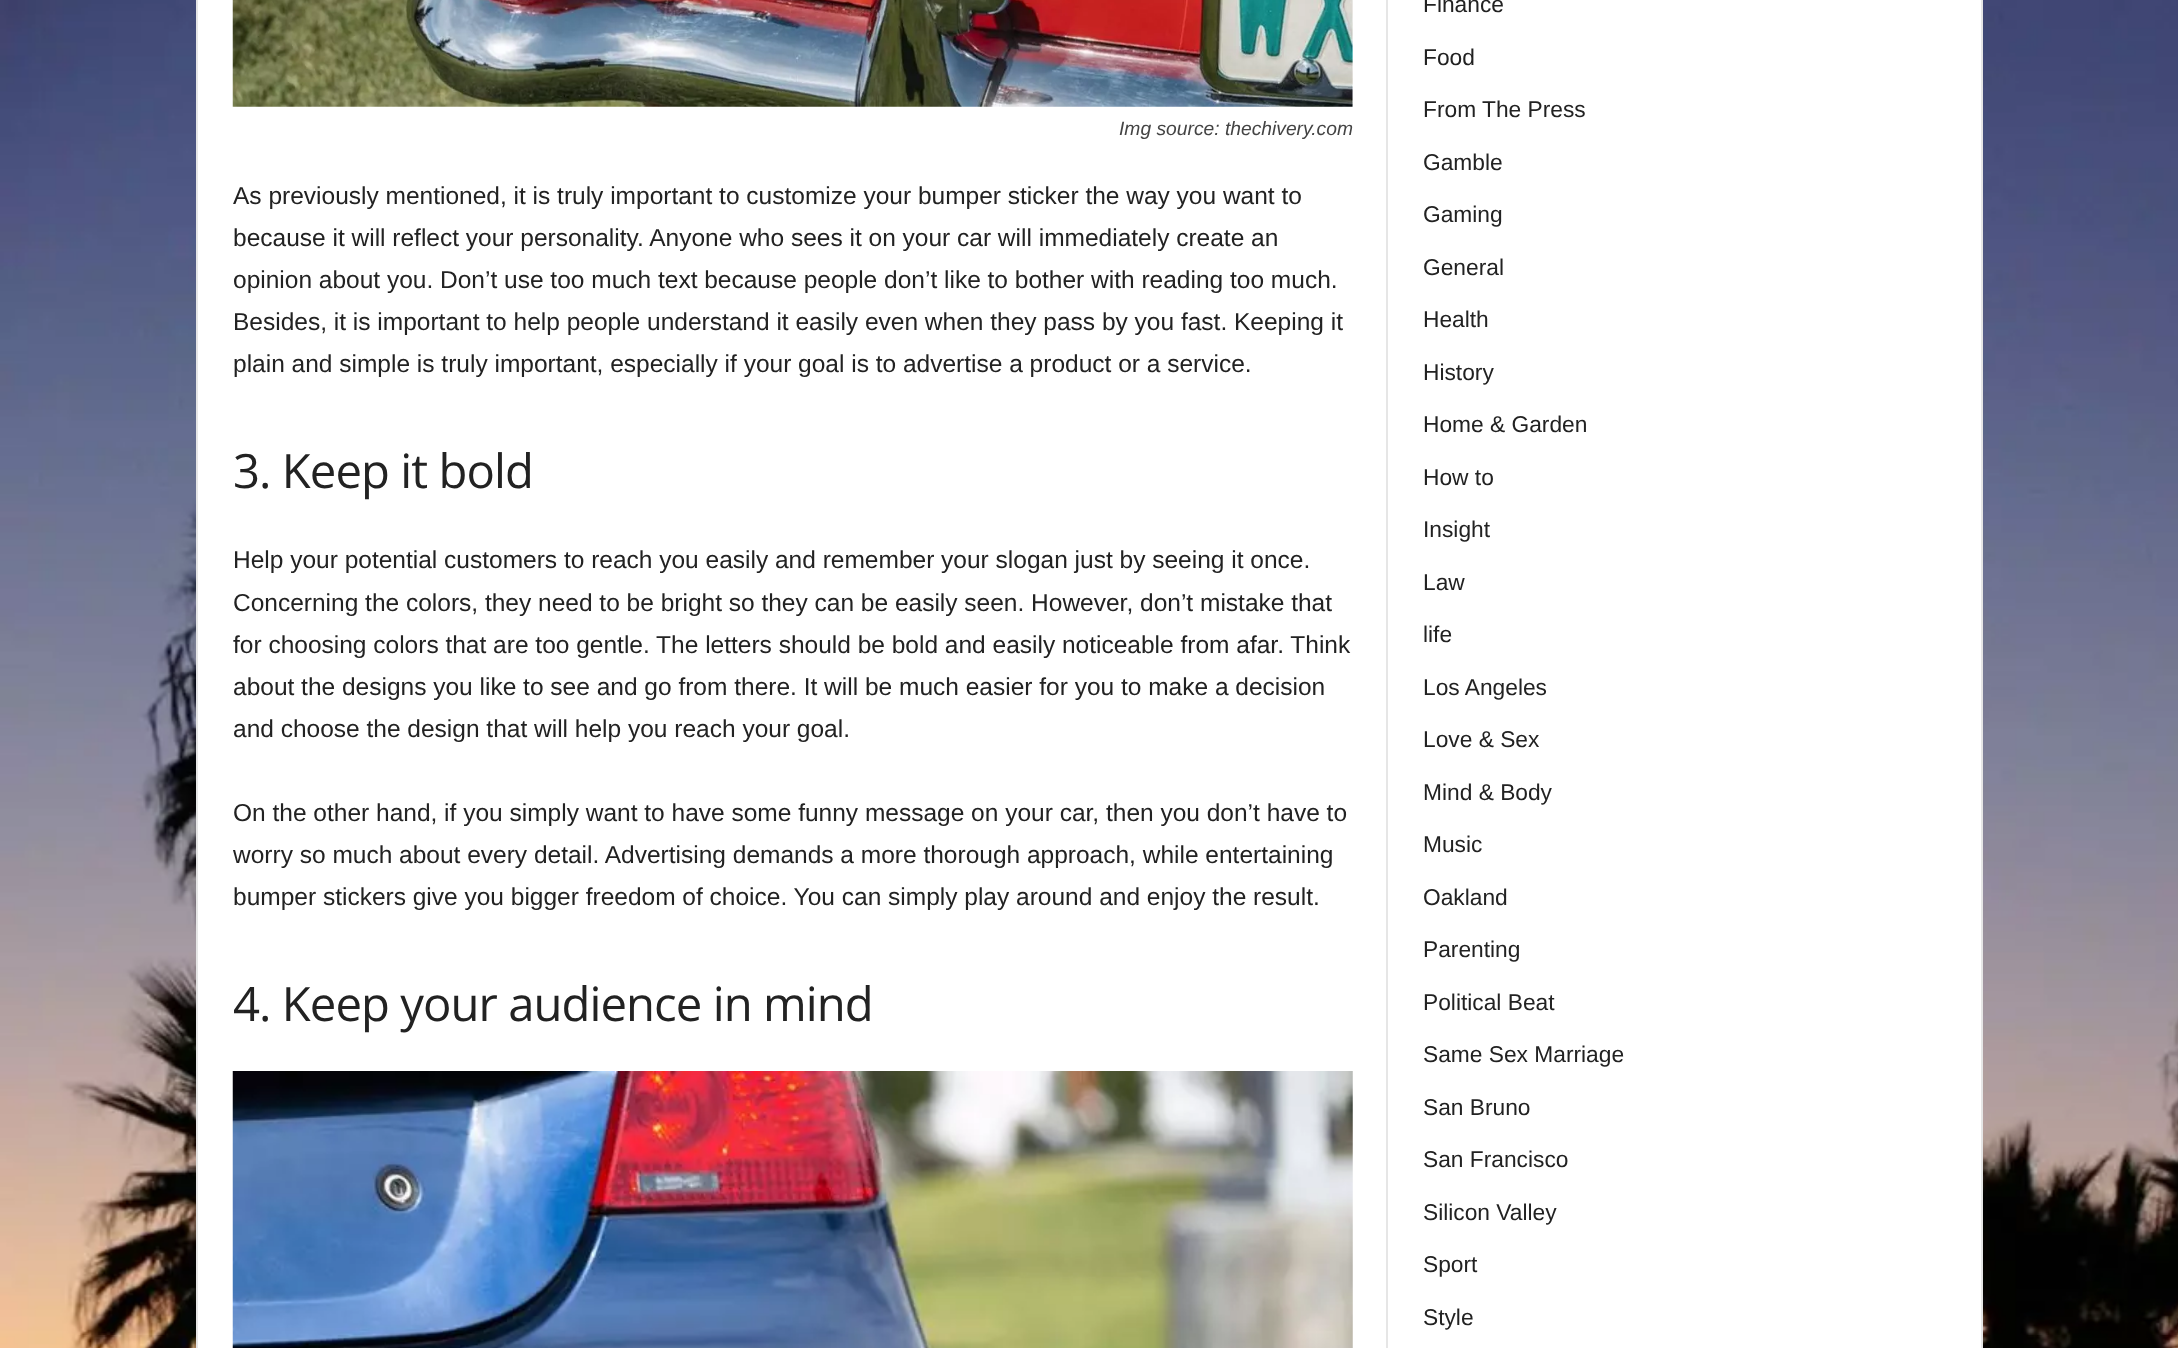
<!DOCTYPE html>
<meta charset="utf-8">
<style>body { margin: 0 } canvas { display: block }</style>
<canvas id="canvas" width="2178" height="1348"></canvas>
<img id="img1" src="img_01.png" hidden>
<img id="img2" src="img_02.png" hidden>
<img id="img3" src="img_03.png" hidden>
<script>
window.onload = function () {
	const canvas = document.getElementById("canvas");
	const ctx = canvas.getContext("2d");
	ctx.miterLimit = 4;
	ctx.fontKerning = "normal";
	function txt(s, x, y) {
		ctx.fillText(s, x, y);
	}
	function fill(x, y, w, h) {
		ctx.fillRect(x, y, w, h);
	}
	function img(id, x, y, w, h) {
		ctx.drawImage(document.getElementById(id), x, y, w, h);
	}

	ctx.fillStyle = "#FFFFFF";
	fill(0, 0, 2178, 1348);
	img("img1", 0, 0, 2178, 1348);
	fill(198, 0, 1783, 1348);
	ctx.fillStyle = "#E6E6E6";
	fill(196, 0, 2, 1348);
	img("img2", 232, 0, 1121, 107);
	img("img3", 232, 1071, 1121, 277);
	fill(1386, 0, 2, 1348);
	fill(1981, 0, 2, 1348);
	ctx.font = "italic 19.25px Liberation Sans";
	ctx.fillStyle = "#444444";
	txt("Img source: thechivery.com", 1119, 135);
	ctx.font = "24.5px Liberation Sans";
	ctx.fillStyle = "#222222";
	txt("As previously mentioned, it is truly important to customize your bumper sticker the way you want to", 233, 204);
	txt("because it will reflect your personality. Anyone who sees it on your car will immediately create an", 233, 246);
	txt("opinion about you. Don’t use too much text because people don’t like to bother with reading too much.", 233, 288);
	txt("Besides, it is important to help people understand it easily even when they pass by you fast. Keeping it", 233, 330);
	txt("plain and simple is truly important, especially if your goal is to advertise a product or a service.", 233, 372);
	ctx.letterSpacing = "-0.95px";
	ctx.font = "47.25px Open Sans";
	txt("3. Keep it bold", 233, 488);
	ctx.letterSpacing = "0px";
	ctx.font = "24.5px Liberation Sans";
	txt("Help your potential customers to reach you easily and remember your slogan just by seeing it once.", 233, 568);
	txt("Concerning the colors, they need to be bright so they can be easily seen. However, don’t mistake that", 233, 611);
	txt("for choosing colors that are too gentle. The letters should be bold and easily noticeable from afar. Think", 233, 653);
	txt("about the designs you like to see and go from there. It will be much easier for you to make a decision", 233, 695);
	txt("and choose the design that will help you reach your goal.", 233, 737);
	txt("On the other hand, if you simply want to have some funny message on your car, then you don’t have to", 233, 821);
	txt("worry so much about every detail. Advertising demands a more thorough approach, while entertaining", 233, 863);
	txt("bumper stickers give you bigger freedom of choice. You can simply play around and enjoy the result.", 233, 905);
	ctx.letterSpacing = "-0.95px";
	ctx.font = "47.25px Open Sans";
	txt("4. Keep your audience in mind", 233, 1021);
	ctx.letterSpacing = "0px";
	ctx.font = "22.75px Liberation Sans";
	txt("Finance", 1423, 12);
	txt("Food", 1423, 65);
	txt("From The Press", 1423, 117);
	txt("Gamble", 1423, 170);
	txt("Gaming", 1423, 222);
	txt("General", 1423, 275);
	txt("Health", 1423, 327);
	txt("History", 1423, 380);
	txt("Home & Garden", 1423, 432);
	txt("How to", 1423, 485);
	txt("Insight", 1423, 537);
	txt("Law", 1423, 590);
	txt("life", 1423, 642);
	txt("Los Angeles", 1423, 695);
	txt("Love & Sex", 1423, 747);
	txt("Mind & Body", 1423, 800);
	txt("Music", 1423, 852);
	txt("Oakland", 1423, 905);
	txt("Parenting", 1423, 957);
	txt("Political Beat", 1423, 1010);
	txt("Same Sex Marriage", 1423, 1062);
	txt("San Bruno", 1423, 1115);
	txt("San Francisco", 1423, 1167);
	txt("Silicon Valley", 1423, 1220);
	txt("Sport", 1423, 1272);
	txt("Style", 1423, 1325);
};
</script>
